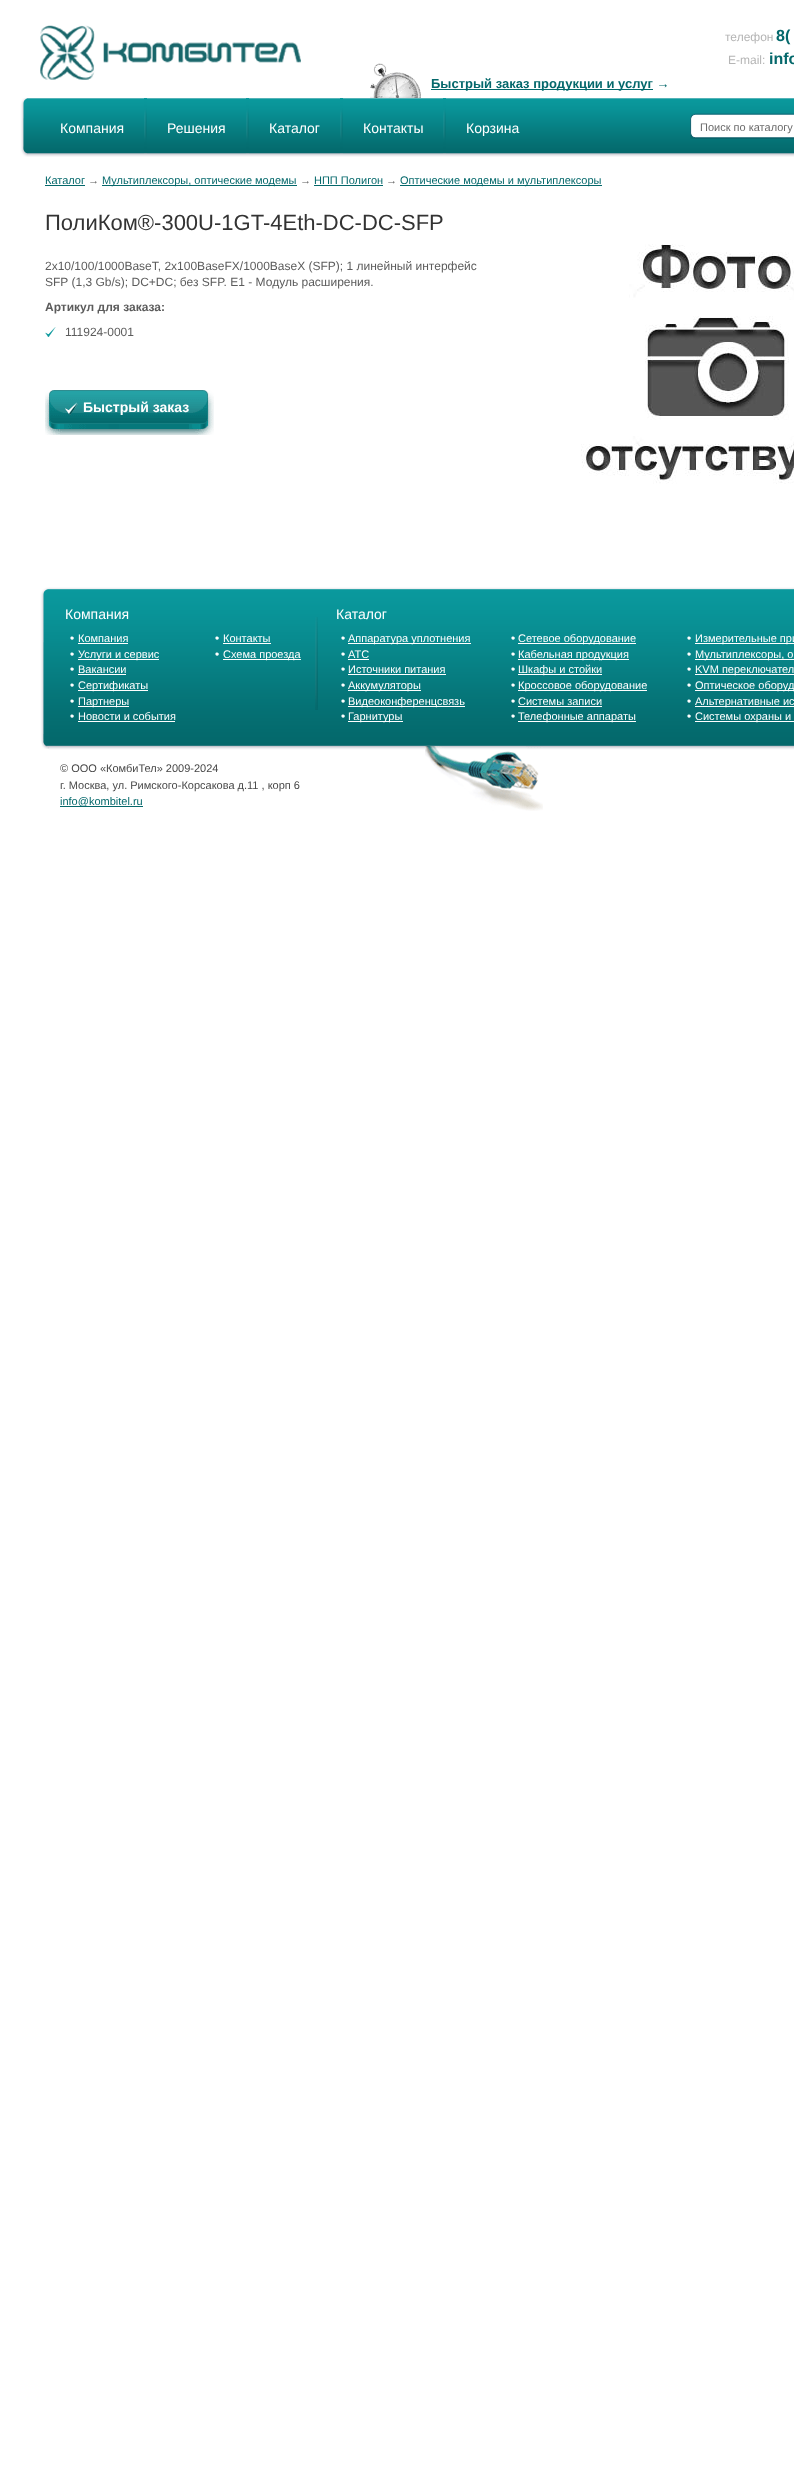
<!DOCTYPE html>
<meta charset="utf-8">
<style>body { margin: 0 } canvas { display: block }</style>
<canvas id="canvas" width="794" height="2474"></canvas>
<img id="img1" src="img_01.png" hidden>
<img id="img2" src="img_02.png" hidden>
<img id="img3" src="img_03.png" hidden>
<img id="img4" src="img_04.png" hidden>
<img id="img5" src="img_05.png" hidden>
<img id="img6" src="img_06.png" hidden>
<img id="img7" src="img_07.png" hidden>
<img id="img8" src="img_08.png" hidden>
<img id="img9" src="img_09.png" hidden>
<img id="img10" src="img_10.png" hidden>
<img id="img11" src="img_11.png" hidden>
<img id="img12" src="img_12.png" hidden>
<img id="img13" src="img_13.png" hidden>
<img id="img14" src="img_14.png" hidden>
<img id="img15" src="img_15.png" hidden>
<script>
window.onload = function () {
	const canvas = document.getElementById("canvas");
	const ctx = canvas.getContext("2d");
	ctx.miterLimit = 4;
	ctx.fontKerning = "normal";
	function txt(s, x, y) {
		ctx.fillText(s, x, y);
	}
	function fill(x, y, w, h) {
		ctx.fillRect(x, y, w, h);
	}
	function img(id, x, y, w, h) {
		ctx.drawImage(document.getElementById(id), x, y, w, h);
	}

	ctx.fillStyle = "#FFFFFF";
	fill(0, 0, 794, 2474);
	img("img1", 40, 25, 261, 55);
	img("img2", 370, 63, 51, 35);
	ctx.fillStyle = "#04686B";
	fill(431, 89, 222, 1);
	img("img3", 20, 98, 7, 59);
	img("img4", 27, 98, 767, 59);
	img("img5", 144, 98, 3, 56);
	img("img5", 246, 98, 3, 56);
	img("img5", 340, 98, 3, 56);
	img("img5", 443, 98, 3, 56);
	img("img6", 690, 113, 104, 26);
	fill(45, 185, 40, 1);
	fill(102, 185, 195, 1);
	fill(314, 185, 69, 1);
	fill(400, 185, 202, 1);
	img("img7", 45, 327, 11, 10);
	img("img8", 189, 390, 25, 45);
	img("img9", 45, 390, 144, 45);
	img("img10", 65, 402, 13, 13);
	img("img11", 581, 244, 213, 240);
	img("img12", 49, 587, 745, 163);
	img("img13", 40, 587, 9, 163);
	ctx.fillStyle = "#FFFFFF";
	fill(78, 643, 50, 1);
	fill(78, 659, 81, 1);
	fill(78, 674, 48, 1);
	fill(78, 690, 70, 1);
	fill(78, 706, 51, 1);
	fill(78, 721, 97, 1);
	fill(223, 643, 48, 1);
	fill(223, 659, 78, 1);
	img("img14", 315, 617, 3, 93);
	fill(348, 643, 123, 1);
	fill(348, 659, 21, 1);
	fill(348, 674, 98, 1);
	fill(348, 690, 73, 1);
	fill(348, 706, 117, 1);
	fill(348, 721, 55, 1);
	fill(518, 643, 118, 1);
	fill(518, 659, 111, 1);
	fill(518, 674, 84, 1);
	fill(518, 690, 129, 1);
	fill(518, 706, 84, 1);
	fill(518, 721, 118, 1);
	fill(695, 643, 99, 1);
	fill(695, 659, 99, 1);
	fill(695, 674, 99, 1);
	fill(695, 690, 99, 1);
	fill(695, 706, 99, 1);
	fill(695, 721, 99, 1);
	ctx.fillStyle = "#04686B";
	fill(60, 806, 83, 1);
	img("img15", 425, 746, 118, 65);
	ctx.font = "12px Liberation Sans";
	ctx.fillStyle = "#B5B5B5";
	txt("телефон", 725, 41);
	ctx.font = "bold 16px Liberation Sans";
	ctx.fillStyle = "#04686B";
	txt("8(", 776, 41);
	ctx.font = "12px Liberation Sans";
	ctx.fillStyle = "#B5B5B5";
	txt("E-mail:", 728, 64);
	ctx.font = "bold 16px Liberation Sans";
	ctx.fillStyle = "#04686B";
	txt("info", 769, 64);
	ctx.font = "bold 13px Liberation Sans";
	txt("Быстрый заказ продукции и услуг →", 431, 88);
	ctx.font = "14px Liberation Sans";
	ctx.fillStyle = "#FFFFFF";
	txt("Компания", 60, 133);
	txt("Решения", 167, 133);
	txt("Каталог", 269, 133);
	txt("Контакты", 363, 133);
	txt("Корзина", 466, 133);
	ctx.font = "11px Liberation Sans";
	ctx.fillStyle = "#6B6B6B";
	txt("Поиск по каталогу", 700, 131);
	ctx.fillStyle = "#04686B";
	txt("Каталог", 45, 184);
	ctx.fillStyle = "#5C5C5C";
	txt("→", 88, 184);
	ctx.fillStyle = "#04686B";
	txt("Мультиплексоры, оптические модемы", 102, 184);
	ctx.fillStyle = "#5C5C5C";
	txt("→", 300, 184);
	ctx.fillStyle = "#04686B";
	txt("НПП Полигон", 314, 184);
	ctx.fillStyle = "#5C5C5C";
	txt("→", 386, 184);
	ctx.fillStyle = "#04686B";
	txt("Оптические модемы и мультиплексоры", 400, 184);
	ctx.font = "22px Liberation Sans";
	ctx.fillStyle = "#333333";
	txt("ПолиКом®-300U-1GT-4Eth-DC-DC-SFP", 45, 230);
	ctx.font = "12px Liberation Sans";
	ctx.fillStyle = "#5C5C5C";
	txt("2x10/100/1000BaseT, 2x100BaseFX/1000BaseX (SFP); 1 линейный интерфейс", 45, 270);
	txt("SFP (1,3 Gb/s); DC+DC; без SFP. E1 - Модуль расширения.", 45, 286);
	ctx.font = "bold 12px Liberation Sans";
	txt("Артикул для заказа:", 45, 311);
	ctx.font = "12px Liberation Sans";
	txt("111924-0001", 65, 336);
	ctx.font = "bold 14px Liberation Sans";
	ctx.fillStyle = "#FFFFFF";
	txt("Быстрый заказ", 83, 412);
	ctx.font = "14px Liberation Sans";
	txt("Компания", 65, 619);
	ctx.font = "12px Liberation Sans";
	txt("•", 70, 642);
	ctx.font = "11px Liberation Sans";
	txt("Компания", 78, 642);
	ctx.font = "12px Liberation Sans";
	txt("•", 70, 658);
	ctx.font = "11px Liberation Sans";
	txt("Услуги и сервис", 78, 658);
	ctx.font = "12px Liberation Sans";
	txt("•", 70, 673);
	ctx.font = "11px Liberation Sans";
	txt("Вакансии", 78, 673);
	ctx.font = "12px Liberation Sans";
	txt("•", 70, 689);
	ctx.font = "11px Liberation Sans";
	txt("Сертификаты", 78, 689);
	ctx.font = "12px Liberation Sans";
	txt("•", 70, 705);
	ctx.font = "11px Liberation Sans";
	txt("Партнеры", 78, 705);
	ctx.font = "12px Liberation Sans";
	txt("•", 70, 720);
	ctx.font = "11px Liberation Sans";
	txt("Новости и события", 78, 720);
	ctx.font = "12px Liberation Sans";
	txt("•", 215, 642);
	ctx.font = "11px Liberation Sans";
	txt("Контакты", 223, 642);
	ctx.font = "12px Liberation Sans";
	txt("•", 215, 658);
	ctx.font = "11px Liberation Sans";
	txt("Схема проезда", 223, 658);
	ctx.font = "14px Liberation Sans";
	txt("Каталог", 336, 619);
	ctx.font = "12px Liberation Sans";
	txt("•", 341, 642);
	ctx.font = "11px Liberation Sans";
	txt("Аппаратура уплотнения", 348, 642);
	ctx.font = "12px Liberation Sans";
	txt("•", 341, 658);
	ctx.font = "11px Liberation Sans";
	txt("АТС", 348, 658);
	ctx.font = "12px Liberation Sans";
	txt("•", 341, 673);
	ctx.font = "11px Liberation Sans";
	txt("Источники питания", 348, 673);
	ctx.font = "12px Liberation Sans";
	txt("•", 341, 689);
	ctx.font = "11px Liberation Sans";
	txt("Аккумуляторы", 348, 689);
	ctx.font = "12px Liberation Sans";
	txt("•", 341, 705);
	ctx.font = "11px Liberation Sans";
	txt("Видеоконференцсвязь", 348, 705);
	ctx.font = "12px Liberation Sans";
	txt("•", 341, 720);
	ctx.font = "11px Liberation Sans";
	txt("Гарнитуры", 348, 720);
	ctx.font = "12px Liberation Sans";
	txt("•", 511, 642);
	ctx.font = "11px Liberation Sans";
	txt("Сетевое оборудование", 518, 642);
	ctx.font = "12px Liberation Sans";
	txt("•", 511, 658);
	ctx.font = "11px Liberation Sans";
	txt("Кабельная продукция", 518, 658);
	ctx.font = "12px Liberation Sans";
	txt("•", 511, 673);
	ctx.font = "11px Liberation Sans";
	txt("Шкафы и стойки", 518, 673);
	ctx.font = "12px Liberation Sans";
	txt("•", 511, 689);
	ctx.font = "11px Liberation Sans";
	txt("Кроссовое оборудование", 518, 689);
	ctx.font = "12px Liberation Sans";
	txt("•", 511, 705);
	ctx.font = "11px Liberation Sans";
	txt("Системы записи", 518, 705);
	ctx.font = "12px Liberation Sans";
	txt("•", 511, 720);
	ctx.font = "11px Liberation Sans";
	txt("Телефонные аппараты", 518, 720);
	ctx.font = "12px Liberation Sans";
	txt("•", 687, 642);
	ctx.font = "11px Liberation Sans";
	txt("Измерительные при", 695, 642);
	ctx.font = "12px Liberation Sans";
	txt("•", 687, 658);
	ctx.font = "11px Liberation Sans";
	txt("Мультиплексоры, о", 695, 658);
	ctx.font = "12px Liberation Sans";
	txt("•", 687, 673);
	ctx.font = "11px Liberation Sans";
	txt("KVM переключател", 695, 673);
	ctx.font = "12px Liberation Sans";
	txt("•", 687, 689);
	ctx.font = "11px Liberation Sans";
	txt("Оптическое оборуд", 695, 689);
	ctx.font = "12px Liberation Sans";
	txt("•", 687, 705);
	ctx.font = "11px Liberation Sans";
	txt("Альтернативные ис", 695, 705);
	ctx.font = "12px Liberation Sans";
	txt("•", 687, 720);
	ctx.font = "11px Liberation Sans";
	txt("Системы охраны и", 695, 720);
	ctx.fillStyle = "#484848";
	txt("© ООО «КомбиТел» 2009-2024", 60, 772);
	txt("г. Москва, ул. Римского-Корсакова д.11 , корп 6", 60, 789);
	ctx.fillStyle = "#04686B";
	txt("info@kombitel.ru", 60, 805);
};
</script>
